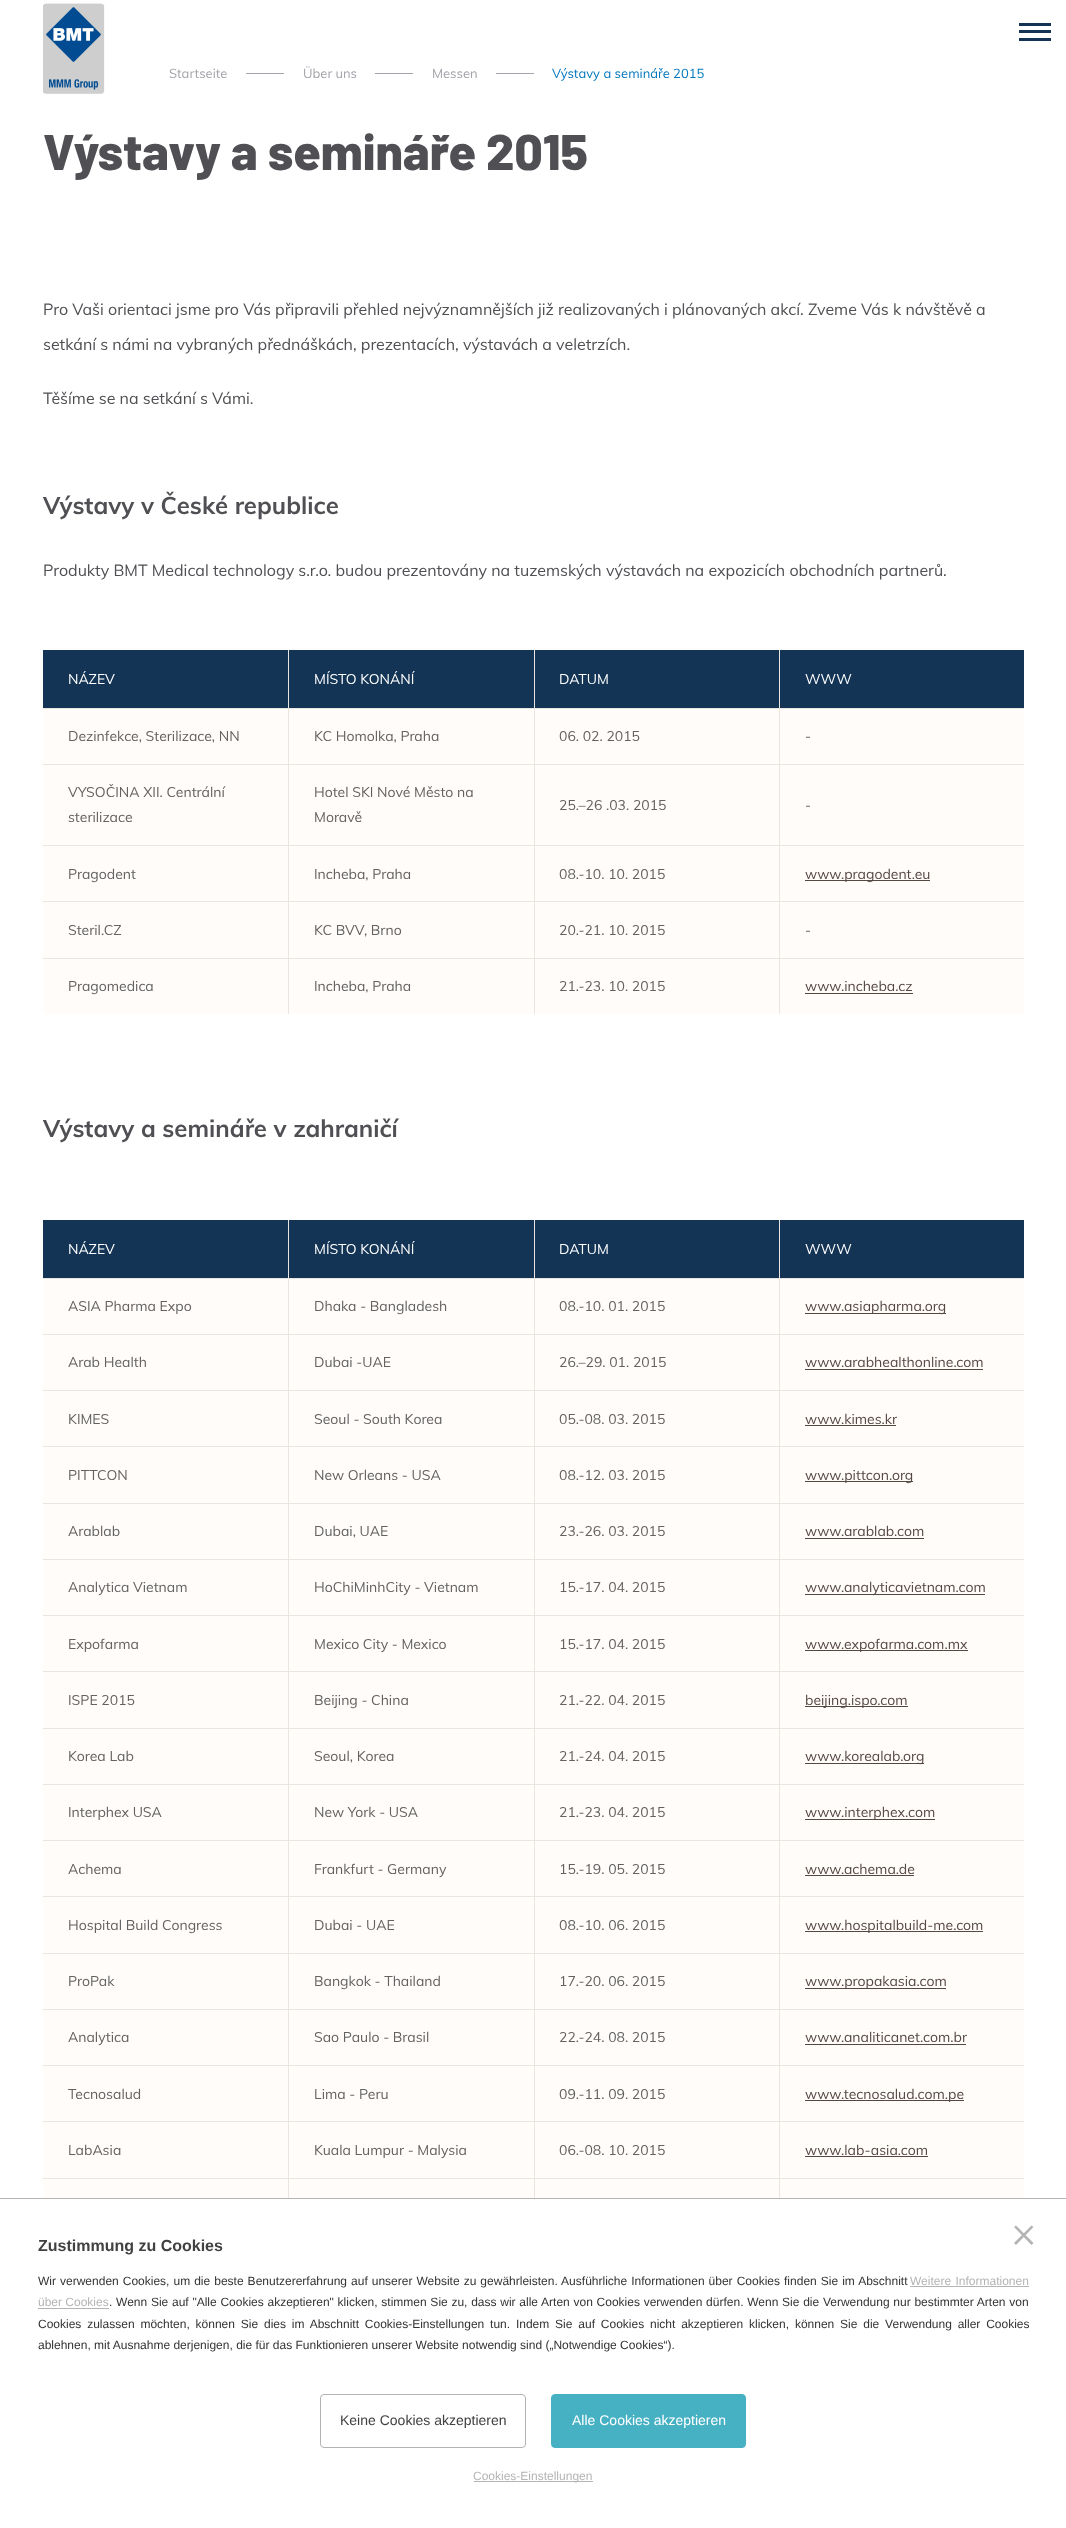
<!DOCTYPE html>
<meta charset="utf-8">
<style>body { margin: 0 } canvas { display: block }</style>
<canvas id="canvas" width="1066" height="2528"></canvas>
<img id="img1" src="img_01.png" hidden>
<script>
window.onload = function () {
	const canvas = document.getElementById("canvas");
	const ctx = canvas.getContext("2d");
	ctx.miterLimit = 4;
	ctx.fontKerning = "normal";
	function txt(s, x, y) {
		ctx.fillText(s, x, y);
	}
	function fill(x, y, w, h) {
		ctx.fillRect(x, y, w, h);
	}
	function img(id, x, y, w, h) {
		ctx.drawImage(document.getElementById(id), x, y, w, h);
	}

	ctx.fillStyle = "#FFFFFF";
	fill(0, 0, 1066, 2528);
	img("img1", 43, 3, 62, 91);
	ctx.fillStyle = "#133455";
	fill(1019, 23, 32, 3);
	fill(1019, 30, 32, 3);
	fill(1019, 38, 32, 3);
	ctx.fillStyle = "#A4A2AA";
	fill(246, 73, 38, 1);
	fill(375, 73, 38, 1);
	fill(496, 73, 38, 1);
	ctx.fillStyle = "#133455";
	fill(43, 650, 245, 58);
	ctx.fillStyle = "#E9E5E1";
	fill(43, 708, 981, 1);
	ctx.fillStyle = "#133455";
	fill(289, 650, 245, 58);
	ctx.fillStyle = "#E9E5E1";
	fill(288, 650, 1, 59);
	ctx.fillStyle = "#133455";
	fill(535, 650, 244, 58);
	ctx.fillStyle = "#E9E5E1";
	fill(534, 650, 1, 59);
	ctx.fillStyle = "#133455";
	fill(780, 650, 244, 58);
	ctx.fillStyle = "#E9E5E1";
	fill(779, 650, 1, 59);
	ctx.fillStyle = "#FFFCFA";
	fill(43, 709, 245, 55);
	ctx.fillStyle = "#E9E5E1";
	fill(43, 764, 981, 1);
	ctx.fillStyle = "#FFFCFA";
	fill(289, 709, 245, 55);
	ctx.fillStyle = "#E9E5E1";
	fill(288, 709, 1, 56);
	ctx.fillStyle = "#FFFCFA";
	fill(535, 709, 244, 55);
	ctx.fillStyle = "#E9E5E1";
	fill(534, 709, 1, 56);
	ctx.fillStyle = "#FFFCFA";
	fill(780, 709, 244, 55);
	ctx.fillStyle = "#E9E5E1";
	fill(779, 709, 1, 56);
	ctx.fillStyle = "#FFFCFA";
	fill(43, 765, 245, 80);
	ctx.fillStyle = "#E9E5E1";
	fill(43, 845, 981, 1);
	ctx.fillStyle = "#FFFCFA";
	fill(289, 765, 245, 80);
	ctx.fillStyle = "#E9E5E1";
	fill(288, 765, 1, 81);
	ctx.fillStyle = "#FFFCFA";
	fill(535, 765, 244, 80);
	ctx.fillStyle = "#E9E5E1";
	fill(534, 765, 1, 81);
	ctx.fillStyle = "#FFFCFA";
	fill(780, 765, 244, 80);
	ctx.fillStyle = "#E9E5E1";
	fill(779, 765, 1, 81);
	ctx.fillStyle = "#FFFCFA";
	fill(43, 846, 245, 112);
	ctx.fillStyle = "#E9E5E1";
	fill(43, 901, 245, 1);
	ctx.fillStyle = "#FFFCFA";
	fill(289, 846, 245, 112);
	ctx.fillStyle = "#E9E5E1";
	fill(288, 901, 246, 1);
	fill(288, 846, 1, 57);
	ctx.fillStyle = "#FFFCFA";
	fill(535, 846, 244, 112);
	ctx.fillStyle = "#E9E5E1";
	fill(534, 901, 245, 1);
	fill(534, 846, 1, 57);
	ctx.fillStyle = "#FFFCFA";
	fill(780, 846, 244, 112);
	ctx.fillStyle = "#E9E5E1";
	fill(779, 901, 245, 1);
	fill(779, 846, 1, 57);
	ctx.fillStyle = "#554843";
	fill(805, 880, 125, 1);
	ctx.fillStyle = "#E9E5E1";
	fill(43, 958, 981, 1);
	fill(288, 903, 1, 111);
	fill(534, 903, 1, 111);
	fill(779, 903, 1, 111);
	ctx.fillStyle = "#FFFCFA";
	fill(43, 959, 245, 55);
	fill(289, 959, 245, 55);
	fill(535, 959, 244, 55);
	fill(780, 959, 244, 55);
	ctx.fillStyle = "#554843";
	fill(805, 993, 108, 1);
	ctx.fillStyle = "#133455";
	fill(43, 1220, 245, 58);
	ctx.fillStyle = "#E9E5E1";
	fill(43, 1278, 981, 1);
	ctx.fillStyle = "#133455";
	fill(289, 1220, 245, 58);
	ctx.fillStyle = "#E9E5E1";
	fill(288, 1220, 1, 59);
	ctx.fillStyle = "#133455";
	fill(535, 1220, 244, 58);
	ctx.fillStyle = "#E9E5E1";
	fill(534, 1220, 1, 59);
	ctx.fillStyle = "#133455";
	fill(780, 1220, 244, 58);
	ctx.fillStyle = "#E9E5E1";
	fill(779, 1220, 1, 59);
	ctx.fillStyle = "#FFFCFA";
	fill(43, 1279, 245, 55);
	ctx.fillStyle = "#E9E5E1";
	fill(43, 1334, 981, 1);
	ctx.fillStyle = "#FFFCFA";
	fill(289, 1279, 245, 55);
	ctx.fillStyle = "#E9E5E1";
	fill(288, 1279, 1, 56);
	ctx.fillStyle = "#FFFCFA";
	fill(535, 1279, 244, 55);
	ctx.fillStyle = "#E9E5E1";
	fill(534, 1279, 1, 56);
	ctx.fillStyle = "#FFFCFA";
	fill(780, 1279, 244, 55);
	ctx.fillStyle = "#E9E5E1";
	fill(779, 1279, 1, 56);
	ctx.fillStyle = "#554843";
	fill(805, 1313, 141, 1);
	ctx.fillStyle = "#FFFCFA";
	fill(43, 1335, 245, 55);
	ctx.fillStyle = "#E9E5E1";
	fill(43, 1390, 981, 1);
	ctx.fillStyle = "#FFFCFA";
	fill(289, 1335, 245, 55);
	ctx.fillStyle = "#E9E5E1";
	fill(288, 1335, 1, 56);
	ctx.fillStyle = "#FFFCFA";
	fill(535, 1335, 244, 55);
	ctx.fillStyle = "#E9E5E1";
	fill(534, 1335, 1, 56);
	ctx.fillStyle = "#FFFCFA";
	fill(780, 1335, 244, 55);
	ctx.fillStyle = "#E9E5E1";
	fill(779, 1335, 1, 56);
	ctx.fillStyle = "#554843";
	fill(805, 1369, 178, 1);
	ctx.fillStyle = "#FFFCFA";
	fill(43, 1391, 245, 112);
	ctx.fillStyle = "#E9E5E1";
	fill(43, 1446, 245, 1);
	ctx.fillStyle = "#FFFCFA";
	fill(289, 1391, 245, 112);
	ctx.fillStyle = "#E9E5E1";
	fill(288, 1446, 246, 1);
	fill(288, 1391, 1, 57);
	ctx.fillStyle = "#FFFCFA";
	fill(535, 1391, 244, 112);
	ctx.fillStyle = "#E9E5E1";
	fill(534, 1446, 245, 1);
	fill(534, 1391, 1, 57);
	ctx.fillStyle = "#FFFCFA";
	fill(780, 1391, 244, 112);
	ctx.fillStyle = "#E9E5E1";
	fill(779, 1446, 245, 1);
	fill(779, 1391, 1, 57);
	ctx.fillStyle = "#554843";
	fill(805, 1425, 91, 1);
	ctx.fillStyle = "#E9E5E1";
	fill(43, 1503, 981, 1);
	fill(288, 1448, 1, 56);
	fill(534, 1448, 1, 56);
	fill(779, 1448, 1, 56);
	ctx.fillStyle = "#554843";
	fill(805, 1481, 108, 1);
	ctx.fillStyle = "#FFFCFA";
	fill(43, 1504, 245, 55);
	ctx.fillStyle = "#E9E5E1";
	fill(43, 1559, 981, 1);
	ctx.fillStyle = "#FFFCFA";
	fill(289, 1504, 245, 55);
	ctx.fillStyle = "#E9E5E1";
	fill(288, 1504, 1, 56);
	ctx.fillStyle = "#FFFCFA";
	fill(535, 1504, 244, 55);
	ctx.fillStyle = "#E9E5E1";
	fill(534, 1504, 1, 56);
	ctx.fillStyle = "#FFFCFA";
	fill(780, 1504, 244, 55);
	ctx.fillStyle = "#E9E5E1";
	fill(779, 1504, 1, 56);
	ctx.fillStyle = "#554843";
	fill(805, 1538, 119, 1);
	ctx.fillStyle = "#FFFCFA";
	fill(43, 1560, 245, 55);
	ctx.fillStyle = "#E9E5E1";
	fill(43, 1615, 981, 1);
	ctx.fillStyle = "#FFFCFA";
	fill(289, 1560, 245, 55);
	ctx.fillStyle = "#E9E5E1";
	fill(288, 1560, 1, 56);
	ctx.fillStyle = "#FFFCFA";
	fill(535, 1560, 244, 55);
	ctx.fillStyle = "#E9E5E1";
	fill(534, 1560, 1, 56);
	ctx.fillStyle = "#FFFCFA";
	fill(780, 1560, 244, 55);
	ctx.fillStyle = "#E9E5E1";
	fill(779, 1560, 1, 56);
	ctx.fillStyle = "#554843";
	fill(805, 1594, 180, 1);
	ctx.fillStyle = "#FFFCFA";
	fill(43, 1616, 245, 112);
	ctx.fillStyle = "#E9E5E1";
	fill(43, 1671, 245, 1);
	ctx.fillStyle = "#FFFCFA";
	fill(289, 1616, 245, 112);
	ctx.fillStyle = "#E9E5E1";
	fill(288, 1671, 246, 1);
	fill(288, 1616, 1, 57);
	ctx.fillStyle = "#FFFCFA";
	fill(535, 1616, 244, 112);
	ctx.fillStyle = "#E9E5E1";
	fill(534, 1671, 245, 1);
	fill(534, 1616, 1, 57);
	ctx.fillStyle = "#FFFCFA";
	fill(780, 1616, 244, 112);
	ctx.fillStyle = "#E9E5E1";
	fill(779, 1671, 245, 1);
	fill(779, 1616, 1, 57);
	ctx.fillStyle = "#554843";
	fill(805, 1650, 163, 1);
	ctx.fillStyle = "#E9E5E1";
	fill(43, 1728, 981, 1);
	fill(288, 1673, 1, 56);
	fill(534, 1673, 1, 56);
	fill(779, 1673, 1, 56);
	ctx.fillStyle = "#554843";
	fill(805, 1706, 103, 1);
	ctx.fillStyle = "#FFFCFA";
	fill(43, 1729, 245, 55);
	ctx.fillStyle = "#E9E5E1";
	fill(43, 1784, 981, 1);
	ctx.fillStyle = "#FFFCFA";
	fill(289, 1729, 245, 55);
	ctx.fillStyle = "#E9E5E1";
	fill(288, 1729, 1, 56);
	ctx.fillStyle = "#FFFCFA";
	fill(535, 1729, 244, 55);
	ctx.fillStyle = "#E9E5E1";
	fill(534, 1729, 1, 56);
	ctx.fillStyle = "#FFFCFA";
	fill(780, 1729, 244, 55);
	ctx.fillStyle = "#E9E5E1";
	fill(779, 1729, 1, 56);
	ctx.fillStyle = "#554843";
	fill(805, 1763, 119, 1);
	ctx.fillStyle = "#FFFCFA";
	fill(43, 1785, 245, 55);
	ctx.fillStyle = "#E9E5E1";
	fill(43, 1840, 981, 1);
	ctx.fillStyle = "#FFFCFA";
	fill(289, 1785, 245, 55);
	ctx.fillStyle = "#E9E5E1";
	fill(288, 1785, 1, 56);
	ctx.fillStyle = "#FFFCFA";
	fill(535, 1785, 244, 55);
	ctx.fillStyle = "#E9E5E1";
	fill(534, 1785, 1, 56);
	ctx.fillStyle = "#FFFCFA";
	fill(780, 1785, 244, 55);
	ctx.fillStyle = "#E9E5E1";
	fill(779, 1785, 1, 56);
	ctx.fillStyle = "#554843";
	fill(805, 1819, 130, 1);
	ctx.fillStyle = "#FFFCFA";
	fill(43, 1841, 245, 112);
	ctx.fillStyle = "#E9E5E1";
	fill(43, 1896, 245, 1);
	ctx.fillStyle = "#FFFCFA";
	fill(289, 1841, 245, 112);
	ctx.fillStyle = "#E9E5E1";
	fill(288, 1896, 246, 1);
	fill(288, 1841, 1, 57);
	ctx.fillStyle = "#FFFCFA";
	fill(535, 1841, 244, 112);
	ctx.fillStyle = "#E9E5E1";
	fill(534, 1896, 245, 1);
	fill(534, 1841, 1, 57);
	ctx.fillStyle = "#FFFCFA";
	fill(780, 1841, 244, 112);
	ctx.fillStyle = "#E9E5E1";
	fill(779, 1896, 245, 1);
	fill(779, 1841, 1, 57);
	ctx.fillStyle = "#554843";
	fill(805, 1875, 109, 1);
	ctx.fillStyle = "#E9E5E1";
	fill(43, 1953, 981, 1);
	fill(288, 1898, 1, 56);
	fill(534, 1898, 1, 56);
	fill(779, 1898, 1, 56);
	ctx.fillStyle = "#554843";
	fill(805, 1931, 178, 1);
	ctx.fillStyle = "#FFFCFA";
	fill(43, 1954, 245, 55);
	ctx.fillStyle = "#E9E5E1";
	fill(43, 2009, 981, 1);
	ctx.fillStyle = "#FFFCFA";
	fill(289, 1954, 245, 55);
	ctx.fillStyle = "#E9E5E1";
	fill(288, 1954, 1, 56);
	ctx.fillStyle = "#FFFCFA";
	fill(535, 1954, 244, 55);
	ctx.fillStyle = "#E9E5E1";
	fill(534, 1954, 1, 56);
	ctx.fillStyle = "#FFFCFA";
	fill(780, 1954, 244, 55);
	ctx.fillStyle = "#E9E5E1";
	fill(779, 1954, 1, 56);
	ctx.fillStyle = "#554843";
	fill(805, 1988, 141, 1);
	ctx.fillStyle = "#FFFCFA";
	fill(43, 2010, 245, 55);
	ctx.fillStyle = "#E9E5E1";
	fill(43, 2065, 981, 1);
	ctx.fillStyle = "#FFFCFA";
	fill(289, 2010, 245, 55);
	ctx.fillStyle = "#E9E5E1";
	fill(288, 2010, 1, 56);
	ctx.fillStyle = "#FFFCFA";
	fill(535, 2010, 244, 55);
	ctx.fillStyle = "#E9E5E1";
	fill(534, 2010, 1, 56);
	ctx.fillStyle = "#FFFCFA";
	fill(780, 2010, 244, 55);
	ctx.fillStyle = "#E9E5E1";
	fill(779, 2010, 1, 56);
	ctx.fillStyle = "#554843";
	fill(805, 2044, 161, 1);
	ctx.fillStyle = "#FFFCFA";
	fill(43, 2066, 245, 112);
	ctx.fillStyle = "#E9E5E1";
	fill(43, 2121, 245, 1);
	ctx.fillStyle = "#FFFCFA";
	fill(289, 2066, 245, 112);
	ctx.fillStyle = "#E9E5E1";
	fill(288, 2121, 246, 1);
	fill(288, 2066, 1, 57);
	ctx.fillStyle = "#FFFCFA";
	fill(535, 2066, 244, 112);
	ctx.fillStyle = "#E9E5E1";
	fill(534, 2121, 245, 1);
	fill(534, 2066, 1, 57);
	ctx.fillStyle = "#FFFCFA";
	fill(780, 2066, 244, 112);
	ctx.fillStyle = "#E9E5E1";
	fill(779, 2121, 245, 1);
	fill(779, 2066, 1, 57);
	ctx.fillStyle = "#554843";
	fill(805, 2100, 159, 1);
	ctx.fillStyle = "#E9E5E1";
	fill(43, 2178, 981, 1);
	fill(288, 2123, 1, 75);
	fill(534, 2123, 1, 75);
	fill(779, 2123, 1, 75);
	ctx.fillStyle = "#554843";
	fill(805, 2156, 123, 1);
	ctx.fillStyle = "#FFFCFA";
	fill(43, 2179, 245, 19);
	fill(289, 2179, 245, 19);
	fill(535, 2179, 244, 19);
	fill(780, 2179, 244, 19);
	ctx.fillStyle = "#B4B4B4";
	fill(0, 2198, 1066, 1);
	ctx.beginPath();
	ctx.moveTo(1016, 2225.5);
	ctx.lineTo(1033.5, 2243);
	ctx.lineTo(1031.5, 2245);
	ctx.lineTo(1014, 2227);
	ctx.closePath();
	ctx.fill();
	ctx.beginPath();
	ctx.moveTo(1014, 2243);
	ctx.lineTo(1031.5, 2225.5);
	ctx.lineTo(1033.5, 2227);
	ctx.lineTo(1016, 2245);
	ctx.closePath();
	ctx.fill();
	fill(910, 2286, 119, 1);
	fill(38, 2308, 71, 1);
	ctx.beginPath();
	ctx.roundRect(320.5, 2394.5, 205, 53, 3.5);
	ctx.strokeStyle = "#B4B4B4";
	ctx.stroke();
	ctx.fillStyle = "#47B1C4";
	ctx.beginPath();
	ctx.roundRect(551.5, 2394.5, 194, 53, 3.5);
	ctx.fill();
	ctx.strokeStyle = "#47B1C4";
	ctx.stroke();
	ctx.fillStyle = "#B4B4B4";
	fill(474, 2481, 119, 1);
	ctx.font = "13px Muli";
	ctx.fillStyle = "#A4A2AA";
	txt("Startseite", 169, 78);
	txt("Über uns", 303, 78);
	txt("Messen", 432, 78);
	ctx.fillStyle = "#0076BE";
	txt("Výstavy a semináře 2015", 552, 78);
	ctx.font = "800 50px Barlow";
	ctx.fillStyle = "#504F53";
	txt("Výstavy a semináře 2015", 43, 170);
	ctx.font = "16px Muli";
	txt("Pro Vaši orientaci jsme pro Vás připravili přehled nejvýznamnějších již realizovaných i plánovaných akcí. Zveme Vás k návštěvě a", 43, 315);
	txt("setkání s námi na vybraných přednáškách, prezentacích, výstavách a veletrzích.", 43, 350);
	txt("Těšíme se na setkání s Vámi.", 43, 404);
	ctx.font = "bold 24px Muli";
	txt("Výstavy v České republice", 43, 514);
	ctx.font = "16px Muli";
	txt("Produkty BMT Medical technology s.r.o. budou prezentovány na tuzemských výstavách na expozicích obchodních partnerů.", 43, 576);
	ctx.font = "14px Muli";
	ctx.fillStyle = "#FFFFFF";
	txt("NÁZEV", 68, 684);
	txt("MÍSTO KONÁNÍ", 314, 684);
	txt("DATUM", 559, 684);
	txt("WWW", 805, 684);
	ctx.fillStyle = "#626262";
	txt("Dezinfekce, Sterilizace, NN", 68, 741);
	txt("KC Homolka, Praha", 314, 741);
	txt("06. 02. 2015", 559, 741);
	txt("-", 805, 741);
	txt("VYSOČINA XII. Centrální", 68, 797);
	txt("sterilizace", 68, 822);
	txt("Hotel SKI Nové Město na", 314, 797);
	txt("Moravě", 314, 822);
	txt("25.–26 .03. 2015", 559, 810);
	txt("-", 805, 810);
	txt("Pragodent", 68, 879);
	txt("Incheba, Praha", 314, 879);
	txt("08.-10. 10. 2015", 559, 879);
	ctx.fillStyle = "#554843";
	txt("www.pragodent.eu", 805, 879);
	ctx.fillStyle = "#626262";
	txt("Steril.CZ", 68, 935);
	txt("KC BVV, Brno", 314, 935);
	txt("20.-21. 10. 2015", 559, 935);
	txt("-", 805, 935);
	txt("Pragomedica", 68, 991);
	txt("Incheba, Praha", 314, 991);
	txt("21.-23. 10. 2015", 559, 991);
	ctx.fillStyle = "#554843";
	txt("www.incheba.cz", 805, 991);
	ctx.font = "bold 24px Muli";
	ctx.fillStyle = "#504F53";
	txt("Výstavy a semináře v zahraničí", 43, 1137);
	ctx.font = "14px Muli";
	ctx.fillStyle = "#FFFFFF";
	txt("NÁZEV", 68, 1254);
	txt("MÍSTO KONÁNÍ", 314, 1254);
	txt("DATUM", 559, 1254);
	txt("WWW", 805, 1254);
	ctx.fillStyle = "#626262";
	txt("ASIA Pharma Expo", 68, 1311);
	txt("Dhaka - Bangladesh", 314, 1311);
	txt("08.-10. 01. 2015", 559, 1311);
	ctx.fillStyle = "#554843";
	txt("www.asiapharma.org", 805, 1311);
	ctx.fillStyle = "#626262";
	txt("Arab Health", 68, 1367);
	txt("Dubai -UAE", 314, 1367);
	txt("26.–29. 01. 2015", 559, 1367);
	ctx.fillStyle = "#554843";
	txt("www.arabhealthonline.com", 805, 1367);
	ctx.fillStyle = "#626262";
	txt("KIMES", 68, 1424);
	txt("Seoul - South Korea", 314, 1424);
	txt("05.-08. 03. 2015", 559, 1424);
	ctx.fillStyle = "#554843";
	txt("www.kimes.kr", 805, 1424);
	ctx.fillStyle = "#626262";
	txt("PITTCON", 68, 1480);
	txt("New Orleans - USA", 314, 1480);
	txt("08.-12. 03. 2015", 559, 1480);
	ctx.fillStyle = "#554843";
	txt("www.pittcon.org", 805, 1480);
	ctx.fillStyle = "#626262";
	txt("Arablab", 68, 1536);
	txt("Dubai, UAE", 314, 1536);
	txt("23.-26. 03. 2015", 559, 1536);
	ctx.fillStyle = "#554843";
	txt("www.arablab.com", 805, 1536);
	ctx.fillStyle = "#626262";
	txt("Analytica Vietnam", 68, 1592);
	txt("HoChiMinhCity - Vietnam", 314, 1592);
	txt("15.-17. 04. 2015", 559, 1592);
	ctx.fillStyle = "#554843";
	txt("www.analyticavietnam.com", 805, 1592);
	ctx.fillStyle = "#626262";
	txt("Expofarma", 68, 1649);
	txt("Mexico City - Mexico", 314, 1649);
	txt("15.-17. 04. 2015", 559, 1649);
	ctx.fillStyle = "#554843";
	txt("www.expofarma.com.mx", 805, 1649);
	ctx.fillStyle = "#626262";
	txt("ISPE 2015", 68, 1705);
	txt("Beijing - China", 314, 1705);
	txt("21.-22. 04. 2015", 559, 1705);
	ctx.fillStyle = "#554843";
	txt("beijing.ispo.com", 805, 1705);
	ctx.fillStyle = "#626262";
	txt("Korea Lab", 68, 1761);
	txt("Seoul, Korea", 314, 1761);
	txt("21.-24. 04. 2015", 559, 1761);
	ctx.fillStyle = "#554843";
	txt("www.korealab.org", 805, 1761);
	ctx.fillStyle = "#626262";
	txt("Interphex USA", 68, 1817);
	txt("New York - USA", 314, 1817);
	txt("21.-23. 04. 2015", 559, 1817);
	ctx.fillStyle = "#554843";
	txt("www.interphex.com", 805, 1817);
	ctx.fillStyle = "#626262";
	txt("Achema", 68, 1874);
	txt("Frankfurt - Germany", 314, 1874);
	txt("15.-19. 05. 2015", 559, 1874);
	ctx.fillStyle = "#554843";
	txt("www.achema.de", 805, 1874);
	ctx.fillStyle = "#626262";
	txt("Hospital Build Congress", 68, 1930);
	txt("Dubai - UAE", 314, 1930);
	txt("08.-10. 06. 2015", 559, 1930);
	ctx.fillStyle = "#554843";
	txt("www.hospitalbuild-me.com", 805, 1930);
	ctx.fillStyle = "#626262";
	txt("ProPak", 68, 1986);
	txt("Bangkok - Thailand", 314, 1986);
	txt("17.-20. 06. 2015", 559, 1986);
	ctx.fillStyle = "#554843";
	txt("www.propakasia.com", 805, 1986);
	ctx.fillStyle = "#626262";
	txt("Analytica", 68, 2042);
	txt("Sao Paulo - Brasil", 314, 2042);
	txt("22.-24. 08. 2015", 559, 2042);
	ctx.fillStyle = "#554843";
	txt("www.analiticanet.com.br", 805, 2042);
	ctx.fillStyle = "#626262";
	txt("Tecnosalud", 68, 2099);
	txt("Lima - Peru", 314, 2099);
	txt("09.-11. 09. 2015", 559, 2099);
	ctx.fillStyle = "#554843";
	txt("www.tecnosalud.com.pe", 805, 2099);
	ctx.fillStyle = "#626262";
	txt("LabAsia", 68, 2155);
	txt("Kuala Lumpur - Malysia", 314, 2155);
	txt("06.-08. 10. 2015", 559, 2155);
	ctx.fillStyle = "#554843";
	txt("www.lab-asia.com", 805, 2155);
	ctx.font = "bold 16px Liberation Sans";
	ctx.fillStyle = "#414141";
	txt("Zustimmung zu Cookies", 38, 2251);
	ctx.wordSpacing = "0.7px";
	ctx.font = "12px Liberation Sans";
	ctx.fillStyle = "#333333";
	txt("Wir verwenden Cookies, um die beste Benutzererfahrung auf unserer Website zu gewährleisten. Ausführliche Informationen über Cookies finden Sie im Abschnitt", 38, 2285);
	ctx.wordSpacing = "1px";
	ctx.fillStyle = "#B4B4B4";
	txt("Weitere Informationen", 910, 2285);
	ctx.wordSpacing = "0px";
	txt("über Cookies", 38, 2306);
	ctx.wordSpacing = "0.4px";
	ctx.fillStyle = "#333333";
	txt(". Wenn Sie auf \"Alle Cookies akzeptieren\" klicken, stimmen Sie zu, dass wir alle Arten von Cookies verwenden dürfen. Wenn Sie die Verwendung nur bestimmter Arten von", 109, 2306);
	ctx.wordSpacing = "2.5px";
	txt("Cookies zulassen möchten, können Sie dies im Abschnitt Cookies-Einstellungen tun. Indem Sie auf Cookies nicht akzeptieren klicken, können Sie die Verwendung aller Cookies", 38, 2328);
	ctx.wordSpacing = "0px";
	txt("ablehnen, mit Ausnahme derjenigen, die für das Funktionieren unserer Website notwendig sind („Notwendige Cookies“).", 38, 2349);
	ctx.font = "14px Liberation Sans";
	ctx.fillStyle = "#414141";
	txt("Keine Cookies akzeptieren", 340, 2425);
	ctx.fillStyle = "#FFFFFF";
	txt("Alle Cookies akzeptieren", 572, 2425);
	ctx.font = "12px Liberation Sans";
	ctx.fillStyle = "#B4B4B4";
	txt("Cookies-Einstellungen", 473, 2480);
};
</script>
